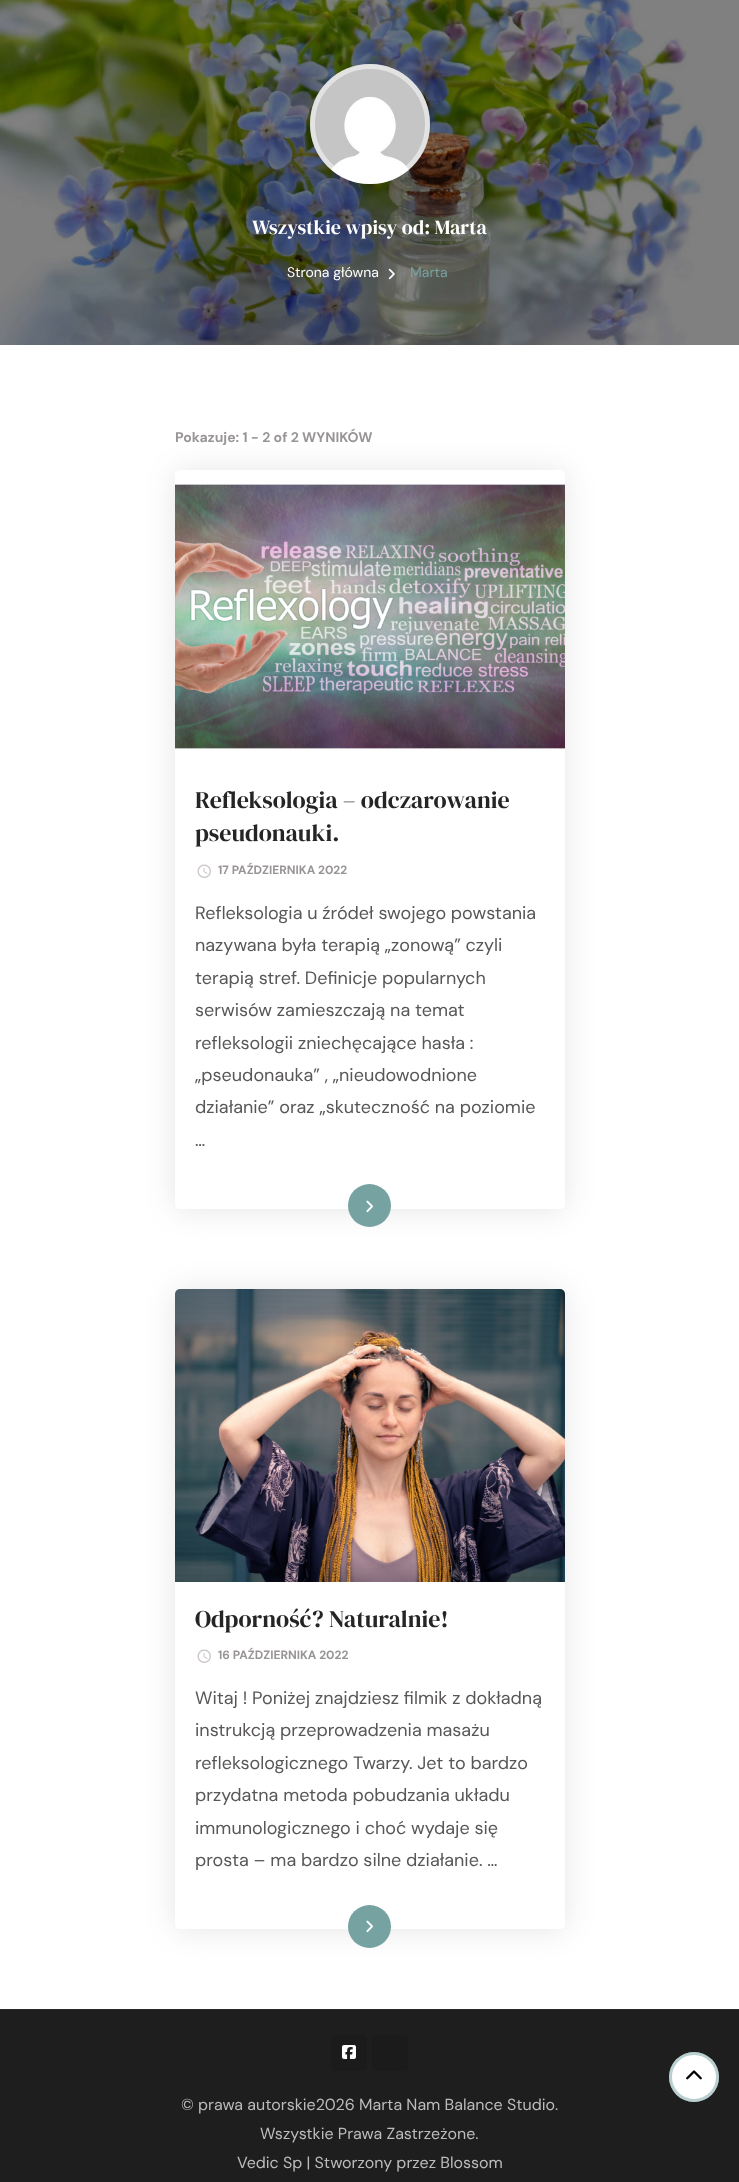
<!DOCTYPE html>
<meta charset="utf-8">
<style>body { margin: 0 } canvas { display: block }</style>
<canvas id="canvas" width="739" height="2182"></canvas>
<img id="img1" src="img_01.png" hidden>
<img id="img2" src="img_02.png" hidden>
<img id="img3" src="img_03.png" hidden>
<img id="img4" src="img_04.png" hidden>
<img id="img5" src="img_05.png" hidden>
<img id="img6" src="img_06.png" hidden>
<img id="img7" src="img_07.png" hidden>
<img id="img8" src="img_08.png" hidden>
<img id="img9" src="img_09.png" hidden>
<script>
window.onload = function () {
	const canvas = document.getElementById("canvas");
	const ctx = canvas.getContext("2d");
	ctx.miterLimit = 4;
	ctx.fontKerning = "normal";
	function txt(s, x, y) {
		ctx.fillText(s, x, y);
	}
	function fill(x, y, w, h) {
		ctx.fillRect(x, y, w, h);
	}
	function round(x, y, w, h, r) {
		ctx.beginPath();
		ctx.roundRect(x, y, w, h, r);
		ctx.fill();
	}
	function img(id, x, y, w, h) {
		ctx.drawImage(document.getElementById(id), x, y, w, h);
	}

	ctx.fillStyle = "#FFFFFF";
	fill(0, 0, 739, 2182);
	ctx.fillStyle = "#808080";
	fill(705, 0, 34, 345);
	img("img1", 0, 0, 705, 345);
	img("img2", 310, 64, 120, 120);
	ctx.beginPath();
	ctx.arc(370, 124, 57.5, 0, Math.PI * 2);
	ctx.strokeStyle = "rgba(255, 255, 255, 0.5)";
	ctx.lineWidth = 5;
	ctx.stroke();
	img("img3", 388, 268, 7, 12);
	ctx.save();
	ctx.beginPath();
	ctx.moveTo(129, 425);
	ctx.lineTo(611, 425);
	ctx.lineTo(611, 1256);
	ctx.lineTo(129, 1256);
	ctx.closePath();
	ctx.moveTo(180, 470);
	ctx.lineTo(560, 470);
	ctx.bezierCurveTo(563, 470, 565, 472, 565, 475);
	ctx.lineTo(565, 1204);
	ctx.bezierCurveTo(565, 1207, 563, 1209, 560, 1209);
	ctx.lineTo(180, 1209);
	ctx.bezierCurveTo(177, 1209, 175, 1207, 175, 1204);
	ctx.lineTo(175, 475);
	ctx.bezierCurveTo(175, 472, 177, 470, 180, 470);
	ctx.closePath();
	ctx.clip("evenodd");
	ctx.fillStyle = "rgba(0, 0, 0, 0.1)";
	ctx.filter = "blur(15px)";
	ctx.beginPath();
	ctx.roundRect(175, 471, 390, 739, 5);
	ctx.fill();
	ctx.filter = "none";
	ctx.restore();
	img("img4", 175, 484, 390, 265);
	img("img5", 197, 864, 14, 14);
	ctx.fillStyle = "#76A2A2";
	ctx.beginPath();
	ctx.arc(369.5, 1205.5, 21.5, 0, Math.PI * 2);
	ctx.fill();
	img("img6", 366, 1200, 7, 13);
	ctx.save();
	ctx.beginPath();
	ctx.moveTo(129, 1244);
	ctx.lineTo(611, 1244);
	ctx.lineTo(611, 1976);
	ctx.lineTo(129, 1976);
	ctx.closePath();
	ctx.moveTo(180, 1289);
	ctx.lineTo(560, 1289);
	ctx.bezierCurveTo(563, 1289, 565, 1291, 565, 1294);
	ctx.lineTo(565, 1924);
	ctx.bezierCurveTo(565, 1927, 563, 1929, 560, 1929);
	ctx.lineTo(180, 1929);
	ctx.bezierCurveTo(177, 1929, 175, 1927, 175, 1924);
	ctx.lineTo(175, 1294);
	ctx.bezierCurveTo(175, 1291, 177, 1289, 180, 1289);
	ctx.closePath();
	ctx.clip("evenodd");
	ctx.fillStyle = "rgba(0, 0, 0, 0.1)";
	ctx.filter = "blur(15px)";
	ctx.beginPath();
	ctx.roundRect(175, 1290, 390, 640, 5);
	ctx.fill();
	ctx.filter = "none";
	ctx.restore();
	img("img7", 175, 1289, 390, 293);
	img("img5", 197, 1649, 14, 14);
	ctx.beginPath();
	ctx.arc(369.5, 1926.5, 21.5, 0, Math.PI * 2);
	ctx.fill();
	img("img6", 366, 1920, 7, 13);
	ctx.fillStyle = "#1E1E1E";
	fill(0, 2010, 739, 172);
	ctx.fillStyle = "#292929";
	fill(0, 2009, 739, 1);
	ctx.fillStyle = "#1B1B1B";
	round(331, 2035, 36, 36, 5);
	img("img8", 342, 2045, 14, 14);
	round(372, 2035, 36, 36, 5);
	ctx.fillStyle = "#FFFFFF";
	ctx.beginPath();
	ctx.arc(694, 2077, 25, 0, Math.PI * 2);
	ctx.fill();
	ctx.beginPath();
	ctx.arc(694, 2077, 23.5, 0, Math.PI * 2);
	ctx.strokeStyle = "rgba(118, 162, 162, 0.5)";
	ctx.lineWidth = 3;
	ctx.stroke();
	img("img9", 686, 2070, 16, 10);
	ctx.font = "20px DM Serif Display";
	txt("Wszystkie wpisy od: Marta", 252, 234);
	ctx.font = "14px DM Sans";
	txt("Strona główna", 287, 277);
	ctx.fillStyle = "#76A2A2";
	txt("Marta", 410, 277);
	ctx.font = "bold 14px DM Sans";
	ctx.fillStyle = "#999596";
	txt("Pokazuje: 1 - 2 of 2 WYNIKÓW", 175, 442);
	ctx.font = "24px DM Serif Display";
	ctx.fillStyle = "#262525";
	txt("Refleksologia – odczarowanie", 195, 808);
	txt("pseudonauki.", 195, 841);
	ctx.font = "bold 12px DM Sans";
	ctx.fillStyle = "#999596";
	txt("17 PAŹDZIERNIKA 2022", 218, 874);
	ctx.font = "18px DM Sans";
	ctx.fillStyle = "#585656";
	txt("Refleksologia u źródeł swojego powstania", 195, 919);
	txt("nazywana była terapią „zonową” czyli", 195, 951);
	txt("terapią stref. Definicje popularnych", 195, 984);
	txt("serwisów zamieszczają na temat", 195, 1016);
	txt("refleksologii zniechęcające hasła :", 195, 1049);
	txt("„pseudonauka” , „nieudowodnione", 195, 1081);
	txt("działanie” oraz „skuteczność na poziomie", 195, 1113);
	txt("…", 195, 1146);
	ctx.font = "24px DM Serif Display";
	ctx.fillStyle = "#262525";
	txt("Odporność? Naturalnie!", 195, 1627);
	ctx.font = "bold 12px DM Sans";
	ctx.fillStyle = "#999596";
	txt("16 PAŹDZIERNIKA 2022", 218, 1659);
	ctx.font = "18px DM Sans";
	ctx.fillStyle = "#585656";
	txt("Witaj ! Poniżej znajdziesz filmik z dokładną", 195, 1704);
	txt("instrukcją przeprowadzenia masażu", 195, 1736);
	txt("refleksologicznego Twarzy. Jet to bardzo", 195, 1769);
	txt("przydatna metoda pobudzania układu", 195, 1801);
	txt("immunologicznego i choć wydaje się", 195, 1834);
	txt("prosta – ma bardzo silne działanie. …", 195, 1866);
	ctx.font = "16px DM Sans";
	ctx.fillStyle = "#BCBCBC";
	txt("© prawa autorskie2026 Marta Nam Balance Studio.", 181, 2110);
	txt("Wszystkie Prawa Zastrzeżone.", 260, 2139);
	txt("Vedic Sp | Stworzony przez Blossom", 237, 2168);
};
</script>
